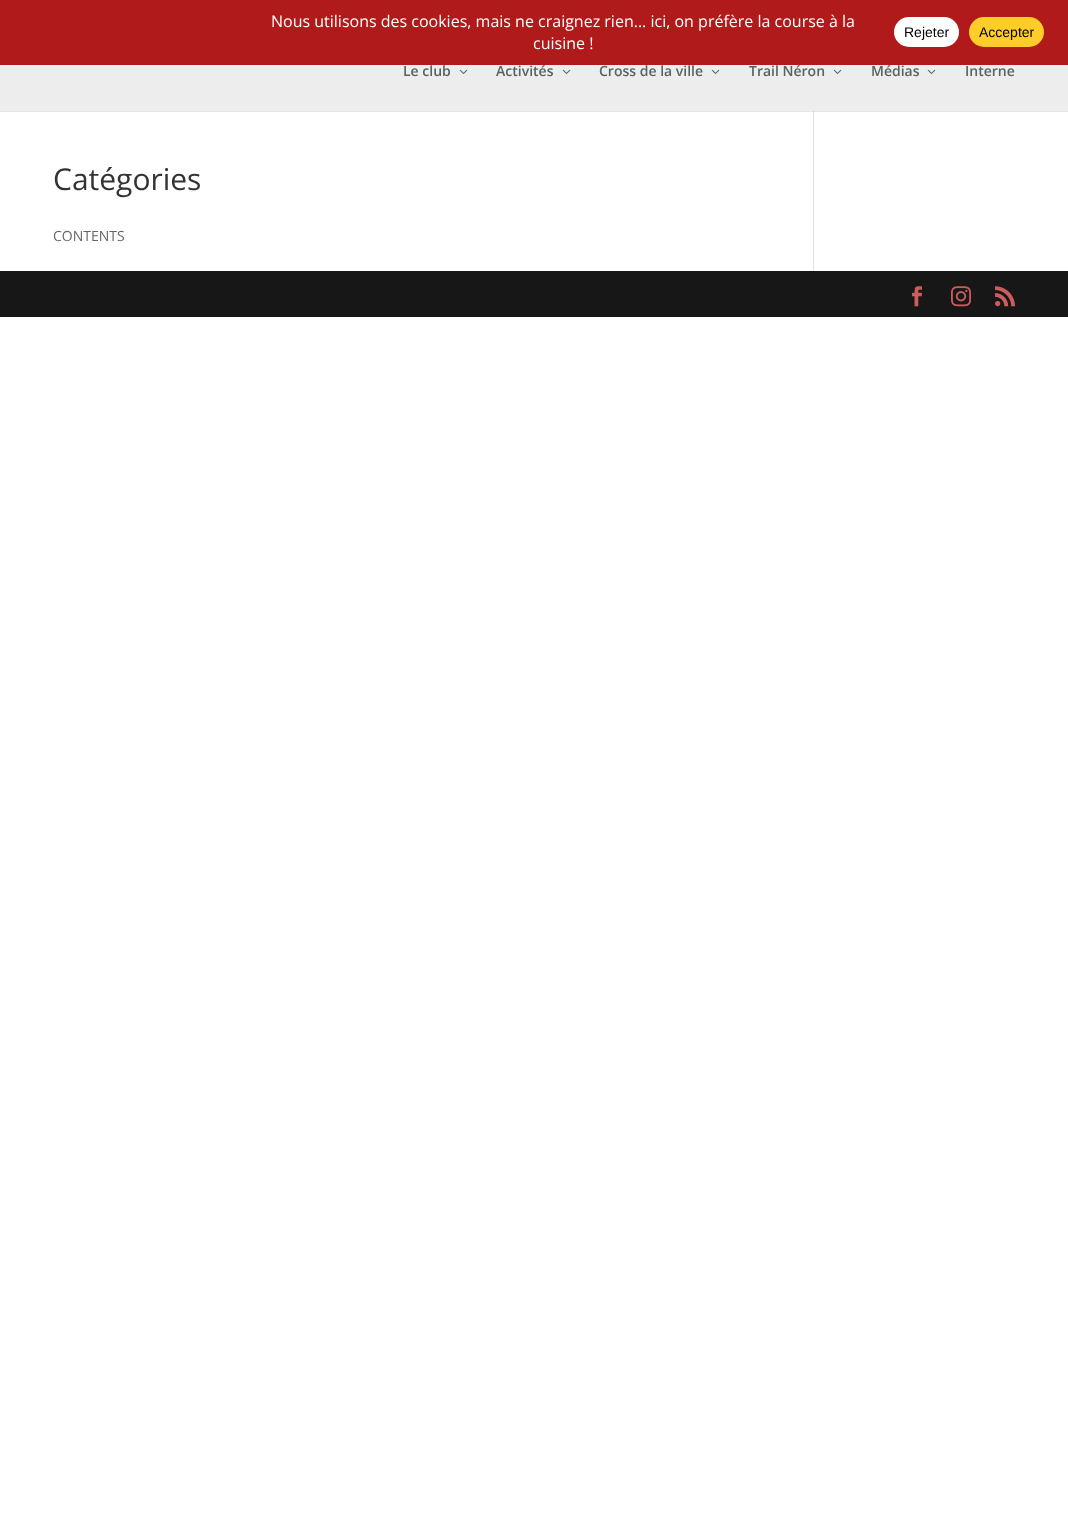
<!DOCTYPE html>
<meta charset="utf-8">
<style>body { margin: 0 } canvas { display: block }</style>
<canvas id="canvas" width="1068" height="1524"></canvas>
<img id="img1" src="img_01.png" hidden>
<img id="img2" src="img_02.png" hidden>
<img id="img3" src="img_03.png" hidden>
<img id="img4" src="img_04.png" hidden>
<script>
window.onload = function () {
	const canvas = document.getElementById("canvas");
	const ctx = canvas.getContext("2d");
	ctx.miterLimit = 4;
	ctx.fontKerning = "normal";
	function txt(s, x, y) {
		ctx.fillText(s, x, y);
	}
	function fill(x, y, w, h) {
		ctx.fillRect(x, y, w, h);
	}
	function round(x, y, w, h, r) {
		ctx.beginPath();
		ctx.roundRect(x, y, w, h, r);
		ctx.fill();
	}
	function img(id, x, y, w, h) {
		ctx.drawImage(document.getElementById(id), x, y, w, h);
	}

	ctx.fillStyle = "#FFFFFF";
	fill(0, 0, 1068, 1524);
	ctx.fillStyle = "#E6E6E6";
	fill(0, 111, 1068, 1);
	ctx.fillStyle = "#B11A1A";
	fill(0, 0, 1068, 65);
	ctx.fillStyle = "#FFFFFF";
	round(894, 17, 65, 30, 15);
	ctx.fillStyle = "#FFCD2A";
	round(969, 17, 75, 30, 15);
	ctx.fillStyle = "#E2E2E2";
	fill(813, 106, 1, 165);
	ctx.fillStyle = "#EDEDED";
	fill(0, 65, 1068, 46);
	img("img1", 459, 69, 9, 5);
	img("img1", 562, 69, 9, 5);
	img("img1", 711, 69, 9, 5);
	img("img1", 833, 69, 9, 5);
	img("img1", 927, 69, 9, 5);
	ctx.fillStyle = "#CBCBCB";
	fill(813, 111, 1, 1);
	ctx.fillStyle = "#171717";
	fill(0, 271, 1068, 46);
	img("img2", 912, 286, 10, 21);
	img("img3", 951, 286, 20, 21);
	img("img4", 995, 286, 20, 21);
	ctx.font = "16px Open Sans";
	ctx.fillStyle = "#FFFFFF";
	txt("Nous utilisons des cookies, mais ne craignez rien... ici, on préfère la course à la", 271, 27);
	txt("cuisine !", 533, 49);
	ctx.font = "14px Liberation Sans";
	ctx.fillStyle = "#000000";
	txt("Rejeter", 904, 37);
	txt("Accepter", 979, 37);
	ctx.font = "600 14px Open Sans";
	ctx.fillStyle = "#5F5F5F";
	txt("Le club", 403, 76);
	txt("Activités", 496, 76);
	txt("Cross de la ville", 599, 76);
	txt("Trail Néron", 749, 76);
	txt("Médias", 871, 76);
	txt("Interne", 965, 76);
	ctx.font = "30px Open Sans";
	ctx.fillStyle = "#333333";
	txt("Catégories", 53, 190);
	ctx.font = "14px Open Sans";
	ctx.fillStyle = "#666666";
	txt("CONTENTS", 53, 241);
};
</script>
